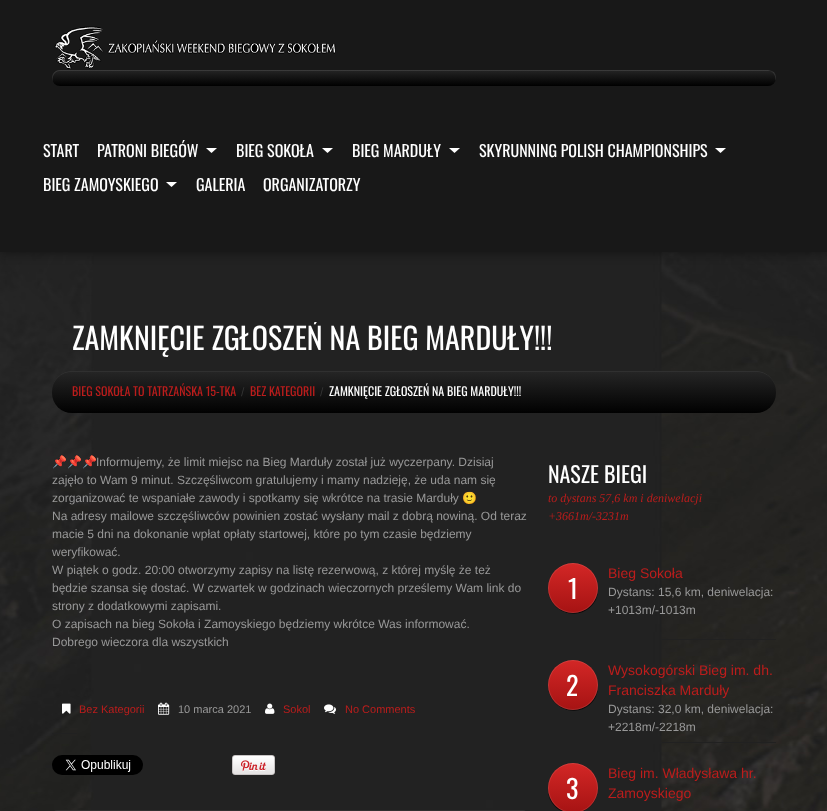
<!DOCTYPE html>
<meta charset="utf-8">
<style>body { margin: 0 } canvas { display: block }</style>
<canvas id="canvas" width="827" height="811"></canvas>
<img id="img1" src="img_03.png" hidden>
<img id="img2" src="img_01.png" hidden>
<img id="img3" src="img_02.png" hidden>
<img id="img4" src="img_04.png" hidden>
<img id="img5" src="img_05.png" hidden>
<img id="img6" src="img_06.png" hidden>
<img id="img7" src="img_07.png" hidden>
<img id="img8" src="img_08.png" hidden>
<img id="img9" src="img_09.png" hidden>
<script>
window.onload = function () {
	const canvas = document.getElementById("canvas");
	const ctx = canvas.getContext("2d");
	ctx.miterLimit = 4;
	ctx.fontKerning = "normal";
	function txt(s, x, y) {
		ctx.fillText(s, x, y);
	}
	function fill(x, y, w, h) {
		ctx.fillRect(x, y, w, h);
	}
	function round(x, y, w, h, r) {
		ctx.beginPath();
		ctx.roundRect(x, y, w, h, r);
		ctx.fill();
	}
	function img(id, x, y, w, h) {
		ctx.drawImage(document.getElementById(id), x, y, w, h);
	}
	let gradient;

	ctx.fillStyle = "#FFFFFF";
	fill(0, 0, 827, 811);
	img("img1", 0, 252, 827, 559);
	ctx.fillStyle = "rgba(0, 0, 0, 0.5)";
	ctx.filter = "blur(6px)";
	ctx.beginPath();
	ctx.rect(0, 0, 827, 252);
	ctx.fill();
	ctx.filter = "none";
	ctx.fillStyle = "#181818";
	fill(0, 0, 827, 252);
	img("img2", 54, 26, 282, 43);
	gradient = ctx.createLinearGradient(414, 70, 414, 86);
	gradient.addColorStop(0, "#252525");
	gradient.addColorStop(1, "#000000");
	ctx.fillStyle = gradient;
	round(52, 70, 724, 16, 8);
	ctx.fillStyle = "rgba(255, 255, 255, 0.1)";
	ctx.beginPath();
	ctx.moveTo(60, 71);
	ctx.lineTo(770, 71);
	ctx.bezierCurveTo(774, 72, 776, 77, 775, 81);
	ctx.bezierCurveTo(777, 78, 776, 75, 774, 72);
	ctx.lineTo(771, 71);
	ctx.lineTo(768, 70);
	ctx.lineTo(60, 70);
	ctx.bezierCurveTo(54, 70, 50, 76, 53, 82);
	ctx.bezierCurveTo(52, 77, 54, 71, 60, 71);
	ctx.closePath();
	ctx.fill();
	img("img3", 206, 148, 11, 5);
	img("img3", 322, 148, 11, 5);
	img("img3", 449, 148, 11, 5);
	img("img3", 715, 148, 11, 5);
	img("img3", 166, 182, 11, 5);
	ctx.fillStyle = "#303030";
	ctx.beginPath();
	ctx.moveTo(72, 371);
	ctx.bezierCurveTo(60, 371, 52, 381, 52, 392);
	ctx.bezierCurveTo(52, 381, 61, 372, 72, 372);
	ctx.lineTo(756, 372);
	ctx.bezierCurveTo(767, 372, 776, 381, 776, 392);
	ctx.bezierCurveTo(776, 381, 768, 371, 756, 371);
	ctx.closePath();
	ctx.fill();
	gradient = ctx.createLinearGradient(414, 372, 414, 413);
	gradient.addColorStop(0, "#252525");
	gradient.addColorStop(1, "#010101");
	ctx.fillStyle = gradient;
	round(52, 372, 724, 41, 20);
	ctx.fillStyle = "#212121";
	fill(52, 733, 25, 1);
	img("img4", 62, 703, 9, 11);
	img("img5", 158, 702, 12, 13);
	img("img6", 265, 703, 10, 11);
	img("img7", 324, 704, 12, 10);
	img("img8", 52, 755, 91, 20);
	img("img9", 232, 755, 43, 20);
	ctx.fillStyle = "#303030";
	ctx.beginPath();
	ctx.moveTo(57, 810);
	ctx.bezierCurveTo(54, 810, 52, 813, 52, 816);
	ctx.bezierCurveTo(52, 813, 54, 811, 57, 811);
	ctx.lineTo(523, 811);
	ctx.bezierCurveTo(526, 811, 528, 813, 528, 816);
	ctx.bezierCurveTo(528, 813, 526, 810, 523, 810);
	ctx.closePath();
	ctx.fill();
	ctx.fillStyle = "#0A0A0A";
	ctx.beginPath();
	ctx.moveTo(548, 588);
	ctx.bezierCurveTo(548, 613, 580, 623, 594, 603);
	ctx.bezierCurveTo(597, 599, 598, 594, 598, 588);
	ctx.bezierCurveTo(597, 621, 549, 621, 548, 588);
	ctx.closePath();
	ctx.fill();
	gradient = ctx.createLinearGradient(573, 563, 573, 613);
	gradient.addColorStop(0, "#D32726");
	gradient.addColorStop(1, "#A61313");
	ctx.fillStyle = gradient;
	ctx.beginPath();
	ctx.arc(573, 588, 25, 0, Math.PI * 2);
	ctx.fill();
	ctx.beginPath();
	ctx.arc(573, 588, 24.5, 0, Math.PI * 2);
	ctx.strokeStyle = "rgba(255, 255, 255, 0.1)";
	ctx.stroke();
	ctx.fillStyle = "#212121";
	fill(662, 639, 114, 1);
	ctx.fillStyle = "#0A0A0A";
	ctx.beginPath();
	ctx.moveTo(548, 685);
	ctx.bezierCurveTo(548, 710, 580, 720, 594, 700);
	ctx.bezierCurveTo(597, 696, 598, 691, 598, 685);
	ctx.bezierCurveTo(597, 718, 549, 718, 548, 685);
	ctx.closePath();
	ctx.fill();
	gradient = ctx.createLinearGradient(573, 660, 573, 710);
	gradient.addColorStop(0, "#D32726");
	gradient.addColorStop(1, "#A61313");
	ctx.fillStyle = gradient;
	ctx.beginPath();
	ctx.arc(573, 685, 25, 0, Math.PI * 2);
	ctx.fill();
	ctx.beginPath();
	ctx.arc(573, 685, 24.5, 0, Math.PI * 2);
	ctx.stroke();
	ctx.fillStyle = "#212121";
	fill(662, 742, 114, 1);
	ctx.fillStyle = "#0A0A0A";
	ctx.beginPath();
	ctx.moveTo(548, 788);
	ctx.bezierCurveTo(548, 794, 549, 799, 552, 803);
	ctx.bezierCurveTo(566, 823, 598, 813, 598, 788);
	ctx.bezierCurveTo(597, 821, 549, 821, 548, 788);
	ctx.closePath();
	ctx.fill();
	gradient = ctx.createLinearGradient(573, 763, 573, 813);
	gradient.addColorStop(0, "#D32726");
	gradient.addColorStop(1, "#A61313");
	ctx.fillStyle = gradient;
	ctx.beginPath();
	ctx.arc(573, 788, 25, 0, Math.PI * 2);
	ctx.fill();
	ctx.beginPath();
	ctx.arc(573, 788, 24.5, 0, Math.PI * 2);
	ctx.stroke();
	ctx.font = "16px Oswald";
	ctx.fillStyle = "#FFFFFF";
	txt("START", 43, 157);
	txt("PATRONI BIEGÓW", 97, 157);
	txt("BIEG SOKOŁA", 236, 157);
	txt("BIEG MARDUŁY", 352, 157);
	txt("SKYRUNNING POLISH CHAMPIONSHIPS", 479, 157);
	txt("BIEG ZAMOYSKIEGO", 43, 191);
	txt("GALERIA", 196, 191);
	txt("ORGANIZATORZY", 263, 191);
	ctx.save();
	ctx.beginPath();
	ctx.rect(52, 322, 724, 50);
	ctx.clip();
	ctx.font = "30px Oswald";
	txt("ZAMKNIĘCIE ZGŁOSZEŃ NA BIEG MARDUŁY!!!", 72, 350);
	ctx.restore();
	ctx.font = "12px Oswald";
	ctx.fillStyle = "#BC1D1C";
	txt("BIEG SOKOŁA TO TATRZAŃSKA 15-TKA", 72, 396);
	ctx.font = "12px Liberation Sans";
	ctx.fillStyle = "#333333";
	txt("/", 241, 396);
	ctx.font = "12px Oswald";
	ctx.fillStyle = "#BC1D1C";
	txt("BEZ KATEGORII", 250, 396);
	ctx.font = "12px Liberation Sans";
	ctx.fillStyle = "#333333";
	txt("/", 320, 396);
	ctx.font = "12px Oswald";
	ctx.fillStyle = "#FFFFFF";
	txt("ZAMKNIĘCIE ZGŁOSZEŃ NA BIEG MARDUŁY!!!", 329, 396);
	ctx.save();
	ctx.beginPath();
	ctx.rect(52, 453, 476, 292);
	ctx.clip();
	ctx.font = "12px Noto Color Emoji";
	ctx.fillStyle = "#989898";
	txt("📌📌📌", 52, 466);
	ctx.restore();
	ctx.font = "12px Liberation Sans";
	ctx.fillStyle = "#989898";
	txt("Informujemy, że limit miejsc na Bieg Marduły został już wyczerpany. Dzisiaj", 96, 466);
	txt("zajęło to Wam 9 minut. Szczęśliwcom gratulujemy i mamy nadzieję, że uda nam się", 52, 484);
	txt("zorganizować te wspaniałe zawody i spotkamy się wkrótce na trasie Marduły", 52, 502);
	ctx.font = "12px Noto Color Emoji";
	txt("🙂", 462, 502);
	ctx.font = "12px Liberation Sans";
	txt("Na adresy mailowe szczęśliwców powinien zostać wysłany mail z dobrą nowiną. Od teraz", 52, 520);
	txt("macie 5 dni na dokonanie wpłat opłaty startowej, które po tym czasie będziemy", 52, 538);
	txt("weryfikować.", 52, 556);
	txt("W piątek o godz. 20:00 otworzymy zapisy na listę rezerwową, z której myślę że też", 52, 574);
	txt("będzie szansa się dostać. W czwartek w godzinach wieczornych prześlemy Wam link do", 52, 592);
	txt("strony z dodatkowymi zapisami.", 52, 610);
	txt("O zapisach na bieg Sokoła i Zamoyskiego będziemy wkrótce Was informować.", 52, 628);
	txt("Dobrego wieczora dla wszystkich", 52, 646);
	ctx.font = "11px Liberation Sans";
	ctx.fillStyle = "#BC1D1C";
	txt("Bez Kategorii", 79, 713);
	ctx.fillStyle = "#989898";
	txt("10 marca 2021", 178, 713);
	ctx.fillStyle = "#BC1D1C";
	txt("Sokol", 283, 713);
	txt("No Comments", 345, 713);
	ctx.font = "22px Oswald";
	ctx.fillStyle = "#FFFFFF";
	txt("NASZE BIEGI", 548, 483);
	ctx.font = "italic 12px Liberation Serif";
	ctx.fillStyle = "#BC1D1C";
	txt("to dystans 57,6 km i deniwelacji", 548, 502);
	txt("+3661m/-3231m", 548, 520);
	ctx.font = "26px Oswald";
	ctx.fillStyle = "#FFFFFF";
	txt("1", 568, 599);
	ctx.font = "14px Liberation Sans";
	ctx.fillStyle = "#BC1D1C";
	txt("Bieg Sokoła", 608, 578);
	ctx.font = "12px Liberation Sans";
	ctx.fillStyle = "#989898";
	txt("Dystans: 15,6 km, deniwelacja:", 608, 596);
	txt("+1013m/-1013m", 608, 614);
	ctx.font = "26px Oswald";
	ctx.fillStyle = "#FFFFFF";
	txt("2", 566, 696);
	ctx.font = "14px Liberation Sans";
	ctx.fillStyle = "#BC1D1C";
	txt("Wysokogórski Bieg im. dh.", 608, 675);
	txt("Franciszka Marduły", 608, 695);
	ctx.font = "12px Liberation Sans";
	ctx.fillStyle = "#989898";
	txt("Dystans: 32,0 km, deniwelacja:", 608, 713);
	txt("+2218m/-2218m", 608, 731);
	ctx.font = "26px Oswald";
	ctx.fillStyle = "#FFFFFF";
	txt("3", 566, 799);
	ctx.font = "14px Liberation Sans";
	ctx.fillStyle = "#BC1D1C";
	txt("Bieg im. Władysława hr.", 608, 778);
	txt("Zamoyskiego", 608, 798);
};
</script>
